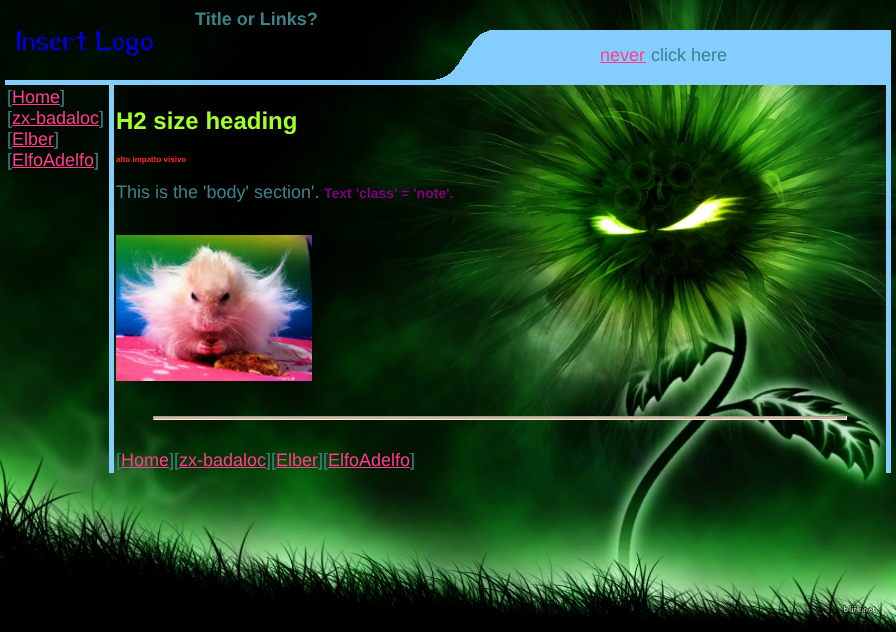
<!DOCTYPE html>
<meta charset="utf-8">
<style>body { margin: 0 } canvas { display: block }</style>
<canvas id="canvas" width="896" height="632"></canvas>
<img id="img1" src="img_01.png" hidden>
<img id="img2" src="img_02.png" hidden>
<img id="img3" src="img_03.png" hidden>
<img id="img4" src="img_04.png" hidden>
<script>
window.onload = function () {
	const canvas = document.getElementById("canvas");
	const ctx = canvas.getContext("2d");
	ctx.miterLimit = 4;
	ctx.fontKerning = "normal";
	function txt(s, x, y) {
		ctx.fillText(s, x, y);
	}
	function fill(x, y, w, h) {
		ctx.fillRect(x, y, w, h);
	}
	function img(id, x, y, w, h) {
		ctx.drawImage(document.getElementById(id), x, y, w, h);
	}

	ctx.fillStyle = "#FFFFFF";
	fill(0, 0, 896, 632);
	img("img1", 0, 0, 896, 632);
	img("img2", 17, 30, 136, 26);
	img("img3", 436, 30, 455, 50);
	ctx.fillStyle = "#FF3D8B";
	fill(600, 62, 46, 1);
	ctx.fillStyle = "#84CEFF";
	fill(5, 80, 886, 5);
	ctx.fillStyle = "#FF3D8B";
	fill(12, 104, 48, 1);
	fill(12, 125, 87, 1);
	fill(12, 146, 42, 1);
	fill(12, 167, 82, 1);
	ctx.fillStyle = "#87CEFA";
	fill(109, 85, 5, 388);
	img("img4", 116, 235, 196, 146);
	ctx.fillStyle = "#D2B48C";
	fill(153, 417, 694, 2);
	ctx.fillStyle = "#9F9F9F";
	fill(153, 416, 694, 1);
	ctx.fillStyle = "#EEEEEE";
	fill(846, 416, 1, 4);
	fill(153, 419, 694, 1);
	ctx.fillStyle = "#9F9F9F";
	fill(153, 416, 1, 4);
	ctx.fillStyle = "#FF3D8B";
	fill(121, 467, 48, 1);
	fill(179, 467, 87, 1);
	fill(276, 467, 42, 1);
	fill(328, 467, 82, 1);
	ctx.fillStyle = "#87CEFA";
	fill(886, 85, 5, 388);
	ctx.font = "bold 18px Liberation Sans";
	ctx.fillStyle = "#40808B";
	txt("Title or Links?", 195, 25);
	ctx.font = "18px Liberation Sans";
	ctx.fillStyle = "#FF3D8B";
	txt("never", 600, 61);
	ctx.fillStyle = "#40808B";
	txt("click here", 651, 61);
	txt("[", 7, 103);
	ctx.fillStyle = "#FF3D8B";
	txt("Home", 12, 103);
	ctx.fillStyle = "#40808B";
	txt("]", 60, 103);
	txt("[", 7, 124);
	ctx.fillStyle = "#FF3D8B";
	txt("zx-badaloc", 12, 124);
	ctx.fillStyle = "#40808B";
	txt("]", 99, 124);
	txt("[", 7, 145);
	ctx.fillStyle = "#FF3D8B";
	txt("Elber", 12, 145);
	ctx.fillStyle = "#40808B";
	txt("]", 54, 145);
	txt("[", 7, 166);
	ctx.fillStyle = "#FF3D8B";
	txt("ElfoAdelfo", 12, 166);
	ctx.fillStyle = "#40808B";
	txt("]", 94, 166);
	ctx.font = "bold 24px Liberation Sans";
	ctx.fillStyle = "#A5FF2A";
	txt("H2 size heading", 116, 129);
	ctx.font = "bold 8px Liberation Sans";
	ctx.fillStyle = "#FF2A2A";
	txt("alto impatto visivo", 116, 162);
	ctx.font = "18px Liberation Sans";
	ctx.fillStyle = "#40808B";
	txt("This is the 'body' section'.", 116, 198);
	ctx.font = "bold 14px Liberation Sans";
	ctx.fillStyle = "#800080";
	txt("Text 'class' = 'note'.", 324, 198);
	ctx.font = "18px Liberation Sans";
	ctx.fillStyle = "#40808B";
	txt("[", 116, 466);
	ctx.fillStyle = "#FF3D8B";
	txt("Home", 121, 466);
	ctx.fillStyle = "#40808B";
	txt("][", 169, 466);
	ctx.fillStyle = "#FF3D8B";
	txt("zx-badaloc", 179, 466);
	ctx.fillStyle = "#40808B";
	txt("][", 266, 466);
	ctx.fillStyle = "#FF3D8B";
	txt("Elber", 276, 466);
	ctx.fillStyle = "#40808B";
	txt("][", 318, 466);
	ctx.fillStyle = "#FF3D8B";
	txt("ElfoAdelfo", 328, 466);
	ctx.fillStyle = "#40808B";
	txt("]", 410, 466);
};
</script>
